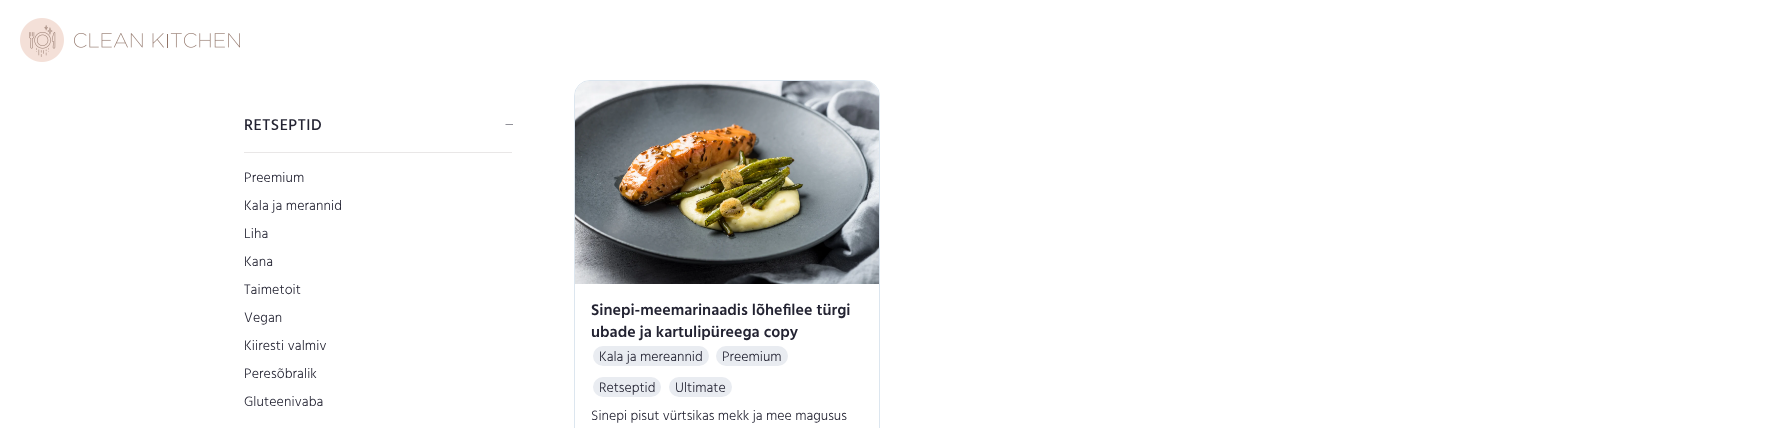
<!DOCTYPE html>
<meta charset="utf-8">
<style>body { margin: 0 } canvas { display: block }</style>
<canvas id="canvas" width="1784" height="428"></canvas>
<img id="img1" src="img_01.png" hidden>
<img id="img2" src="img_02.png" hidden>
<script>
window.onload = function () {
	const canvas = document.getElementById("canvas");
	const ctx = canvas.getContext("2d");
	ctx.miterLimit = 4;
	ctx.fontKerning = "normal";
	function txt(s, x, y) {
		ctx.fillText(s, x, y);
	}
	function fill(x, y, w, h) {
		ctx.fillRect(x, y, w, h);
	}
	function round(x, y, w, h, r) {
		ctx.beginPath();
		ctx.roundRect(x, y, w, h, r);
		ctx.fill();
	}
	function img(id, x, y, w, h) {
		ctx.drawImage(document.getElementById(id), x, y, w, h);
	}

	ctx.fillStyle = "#FFFFFF";
	fill(0, 0, 1784, 428);
	img("img1", 20, 18, 220, 44);
	ctx.fillStyle = "#E9E7E7";
	fill(244, 152, 268, 1);
	ctx.fillStyle = "#232332";
	ctx.beginPath();
	ctx.moveTo(513, 124.5);
	ctx.lineTo(513, 125);
	ctx.lineTo(505.5, 125);
	ctx.lineTo(505.5, 124.5);
	ctx.closePath();
	ctx.fill();
	ctx.beginPath();
	ctx.roundRect(574.5, 80.5, 305, 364, 15.5);
	ctx.strokeStyle = "#DCE6EF";
	ctx.stroke();
	img("img2", 575, 81, 304, 203);
	ctx.fillStyle = "#E9ECF1";
	round(593, 346, 116, 20, 10);
	round(716, 346, 72, 20, 10);
	round(593, 377, 68, 20, 10);
	round(669, 377, 63, 20, 10);
	ctx.letterSpacing = "0.5px";
	ctx.font = "500 16px Hind";
	ctx.fillStyle = "#232332";
	txt("RETSEPTID", 244, 130);
	ctx.letterSpacing = "0.1px";
	ctx.font = "300 14px Hind";
	txt("Preemium", 244, 182);
	txt("Kala ja merannid", 244, 210);
	txt("Liha", 244, 238);
	txt("Kana", 244, 266);
	txt("Taimetoit", 244, 294);
	txt("Vegan", 244, 322);
	txt("Kiiresti valmiv", 244, 350);
	txt("Peresõbralik", 244, 378);
	txt("Gluteenivaba", 244, 406);
	ctx.letterSpacing = "0px";
	ctx.font = "600 16px Hind";
	txt("Sinepi-meemarinaadis lõhefilee türgi", 591, 315);
	txt("ubade ja kartulipüreega copy", 591, 337);
	ctx.font = "300 14px Hind";
	txt("Kala ja mereannid", 599, 361);
	txt("Preemium", 722, 361);
	txt("Retseptid", 599, 392);
	txt("Ultimate", 675, 392);
	txt("Sinepi pisut vürtsikas mekk ja mee magusus", 591, 420);
};
</script>
